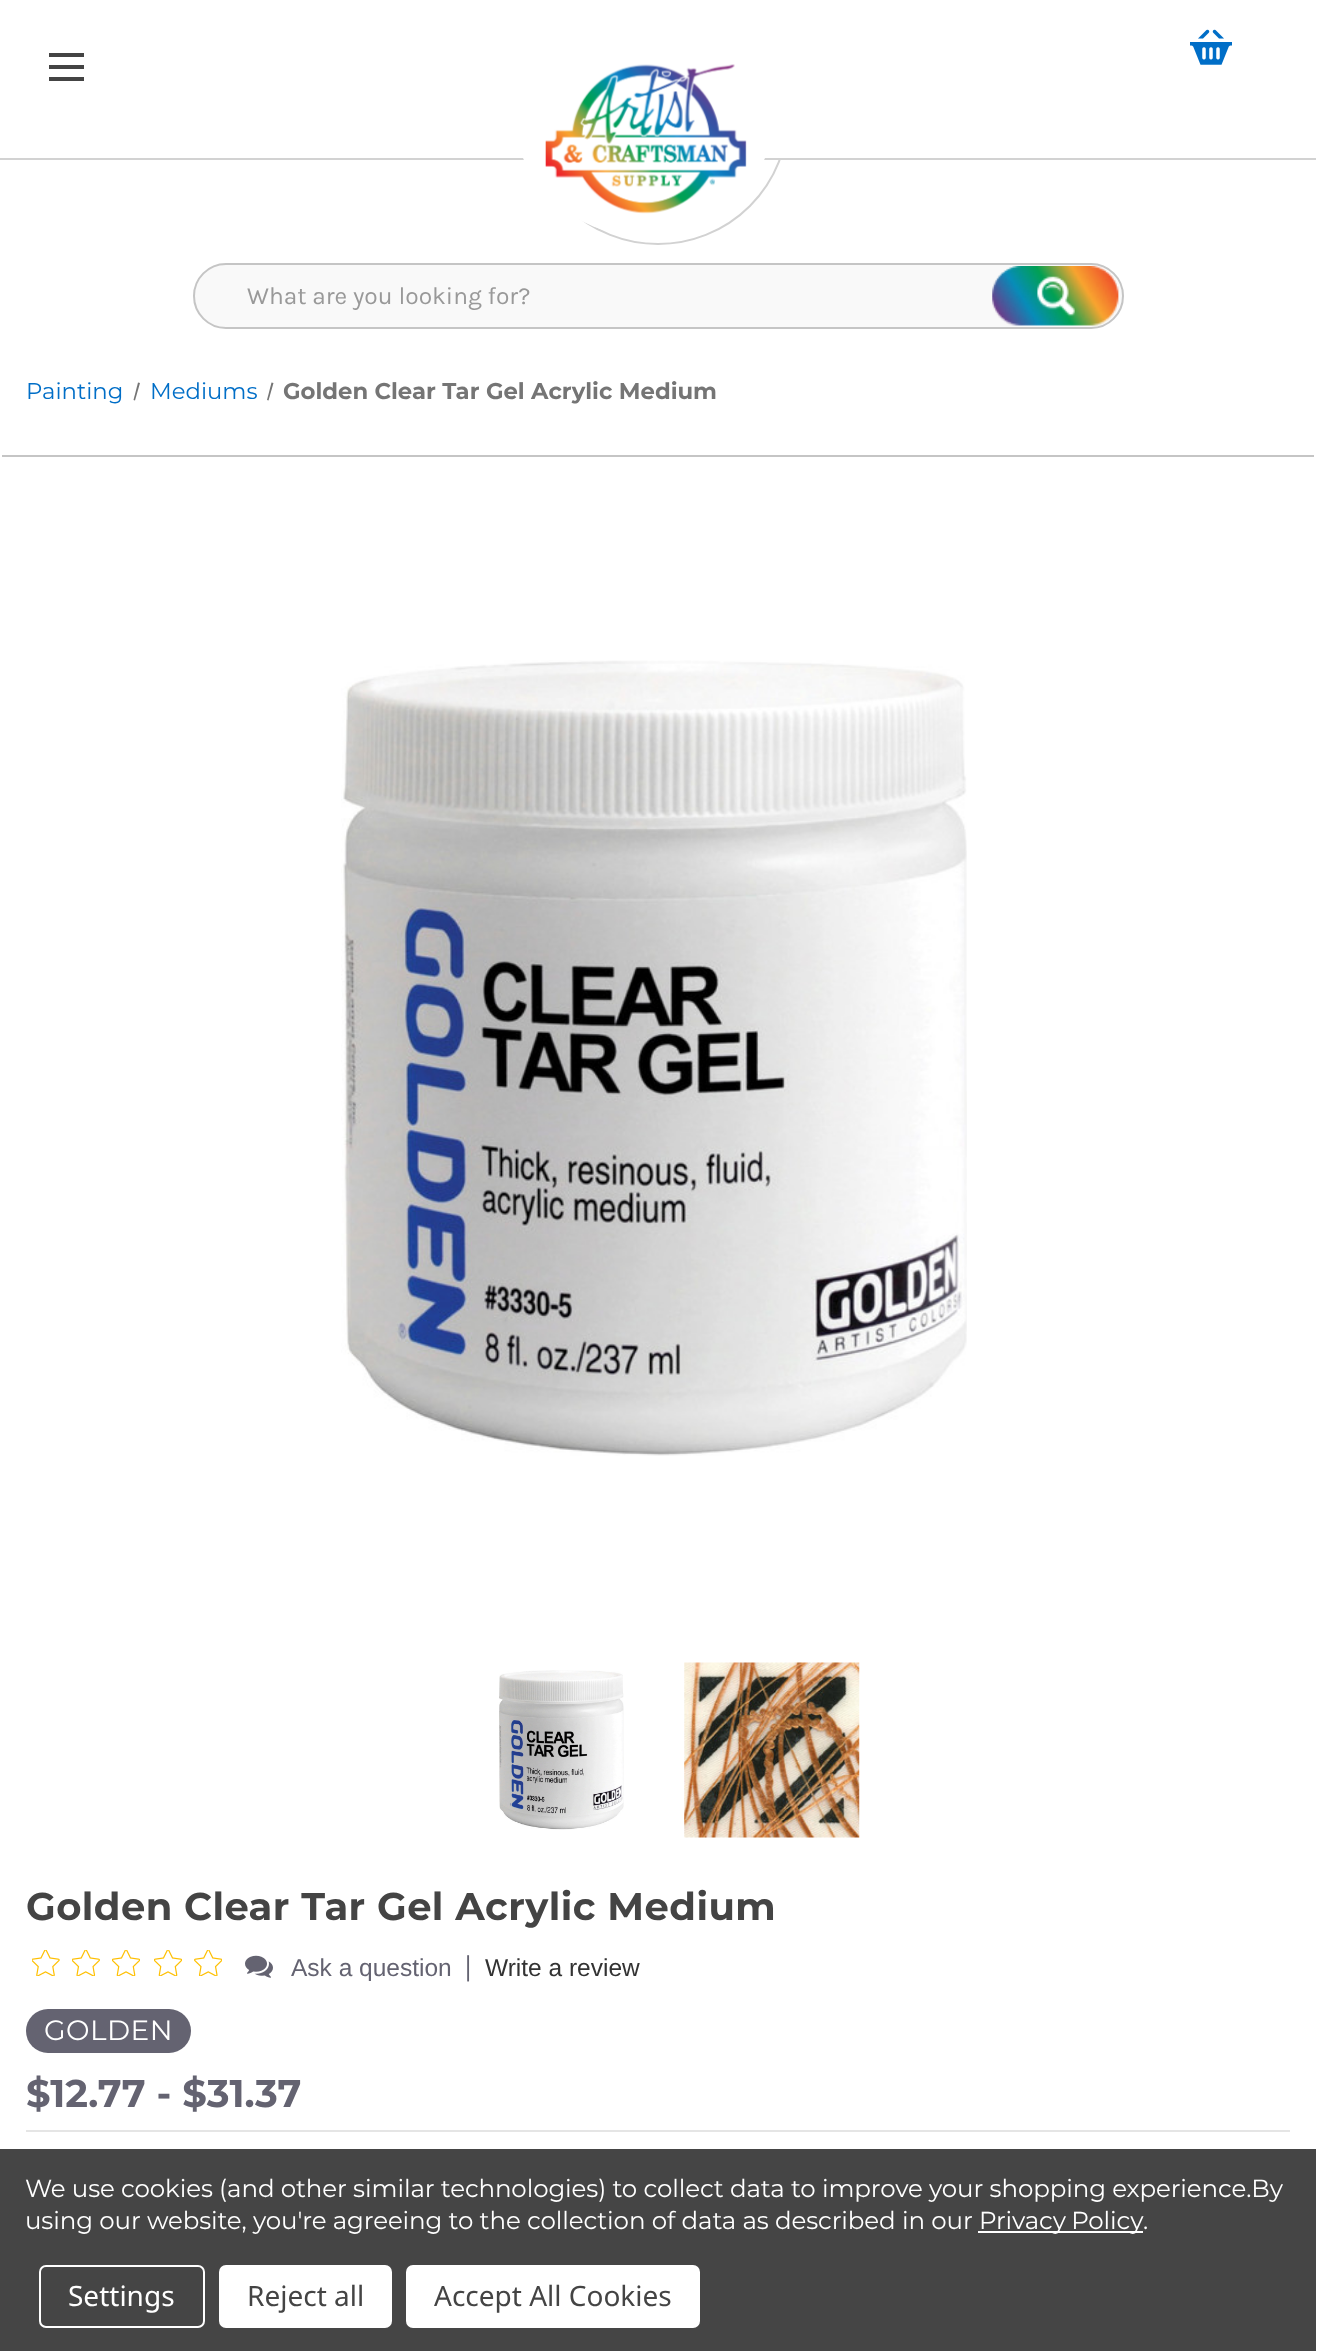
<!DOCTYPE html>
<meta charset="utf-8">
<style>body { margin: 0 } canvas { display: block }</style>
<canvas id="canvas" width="1342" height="2351"></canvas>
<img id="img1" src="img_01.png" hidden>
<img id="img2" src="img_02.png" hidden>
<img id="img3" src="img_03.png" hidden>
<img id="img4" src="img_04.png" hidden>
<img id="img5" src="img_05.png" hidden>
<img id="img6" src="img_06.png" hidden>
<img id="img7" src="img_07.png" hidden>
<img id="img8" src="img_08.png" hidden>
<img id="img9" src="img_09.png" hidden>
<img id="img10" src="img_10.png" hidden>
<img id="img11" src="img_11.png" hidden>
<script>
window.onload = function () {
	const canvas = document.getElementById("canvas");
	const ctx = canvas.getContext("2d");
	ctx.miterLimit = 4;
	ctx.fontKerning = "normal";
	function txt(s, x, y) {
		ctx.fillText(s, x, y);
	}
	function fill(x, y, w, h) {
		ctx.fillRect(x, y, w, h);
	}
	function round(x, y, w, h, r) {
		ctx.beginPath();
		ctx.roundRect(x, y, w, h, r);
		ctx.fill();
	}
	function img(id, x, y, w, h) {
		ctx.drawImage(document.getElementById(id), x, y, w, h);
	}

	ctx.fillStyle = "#FFFFFF";
	fill(0, 0, 1342, 2351);
	ctx.fillStyle = "#444444";
	fill(49, 65, 35, 4);
	fill(49, 53, 35, 4);
	fill(49, 77, 35, 4);
	ctx.beginPath();
	ctx.arc(658, 114, 130, 0, Math.PI * 2);
	ctx.strokeStyle = "#D2D2D2";
	ctx.lineWidth = 2;
	ctx.stroke();
	ctx.fillStyle = "#FFFFFF";
	fill(527, 0, 262, 158);
	ctx.fillStyle = "#D2D2D2";
	fill(0, 158, 1316, 2);
	ctx.fillStyle = "#FFFFFF";
	ctx.beginPath();
	ctx.ellipse(644, 109.5, 131, 127, 0, 0, Math.PI * 2);
	ctx.fill();
	img("img1", 545, 64, 202, 150);
	img("img2", 1190, 29, 42, 36);
	ctx.fillStyle = "#F9F9F9";
	ctx.beginPath();
	ctx.roundRect(194, 264, 929, 64, 32);
	ctx.fill();
	ctx.strokeStyle = "#C5C5C5";
	ctx.stroke();
	img("img3", 992, 266, 127, 60);
	ctx.fillStyle = "#757575";
	ctx.beginPath();
	ctx.moveTo(138, 382.5);
	ctx.lineTo(140, 383);
	ctx.lineTo(135, 400.5);
	ctx.lineTo(133.5, 400);
	ctx.closePath();
	ctx.fill();
	ctx.beginPath();
	ctx.moveTo(271.5, 382.5);
	ctx.lineTo(273.5, 383);
	ctx.lineTo(268.5, 400.5);
	ctx.lineTo(267, 400);
	ctx.closePath();
	ctx.fill();
	ctx.fillStyle = "#C5C5C5";
	fill(2, 455, 1312, 2);
	img("img4", 341, 660, 626, 796);
	img("img5", 499, 1670, 125, 160);
	img("img6", 684, 1662, 176, 176);
	img("img7", 32, 1950, 28, 26);
	img("img8", 72, 1950, 28, 26);
	img("img9", 112, 1950, 28, 26);
	img("img9", 154, 1950, 28, 26);
	img("img10", 194, 1950, 28, 26);
	img("img11", 245, 1955, 28, 23);
	ctx.fillStyle = "#646371";
	round(26, 2009, 165, 44, 22);
	ctx.fillStyle = "#E5E5E5";
	fill(26, 2130, 1264, 2);
	ctx.fillStyle = "#454545";
	fill(0, 2149, 1316, 202);
	ctx.fillStyle = "#FFFFFF";
	fill(978, 2231, 165, 2);
	ctx.beginPath();
	ctx.roundRect(40, 2266, 164, 61, 6);
	ctx.strokeStyle = "#FFFFFF";
	ctx.stroke();
	round(219, 2265, 173, 63, 7);
	round(406, 2265, 294, 63, 7);
	ctx.font = "24.5px Karla";
	ctx.fillStyle = "#999999";
	txt("What are you looking for?", 247, 304);
	ctx.font = "22.75px Montserrat";
	ctx.fillStyle = "#006EC7";
	txt("Painting", 26, 399);
	txt("Mediums", 150, 399);
	ctx.font = "bold 22.75px Montserrat";
	ctx.fillStyle = "#757575";
	txt("Golden Clear Tar Gel Acrylic Medium", 283, 399);
	ctx.letterSpacing = "0.45px";
	ctx.font = "bold 38.5px Montserrat";
	ctx.fillStyle = "#444444";
	txt("Golden Clear Tar Gel Acrylic Medium", 26, 1920);
	ctx.letterSpacing = "0px";
	ctx.font = "24.5px Liberation Sans";
	ctx.fillStyle = "#646371";
	txt("Ask a question", 291, 1976);
	ctx.font = "28px Montserrat";
	txt("|", 464, 1976);
	ctx.font = "24.5px Liberation Sans";
	ctx.fillStyle = "#333333";
	txt("Write a review", 485, 1976);
	ctx.letterSpacing = "0.45px";
	ctx.font = "28px Montserrat";
	ctx.fillStyle = "#FFFFFF";
	txt("GOLDEN", 44, 2040);
	ctx.letterSpacing = "0px";
	ctx.font = "bold 38.5px Montserrat";
	ctx.fillStyle = "#646371";
	txt("$12.77 - $31.37", 26, 2107);
	ctx.letterSpacing = "-0.09px";
	ctx.font = "24.5px Montserrat";
	ctx.fillStyle = "#FFFFFF";
	txt("We use cookies (and other similar technologies) to collect data to improve your shopping experience.By", 25, 2197);
	txt("using our website, you're agreeing to the collection of data as described in our", 25, 2229);
	ctx.wordSpacing = "-1px";
	txt("Privacy Policy", 979, 2229);
	ctx.wordSpacing = "0px";
	txt(".", 1143, 2229);
	ctx.letterSpacing = "0px";
	ctx.font = "28px Noto Sans";
	txt("Settings", 68, 2306);
	ctx.fillStyle = "#444444";
	txt("Reject all", 247, 2306);
	txt("Accept All Cookies", 434, 2306);
};
</script>
